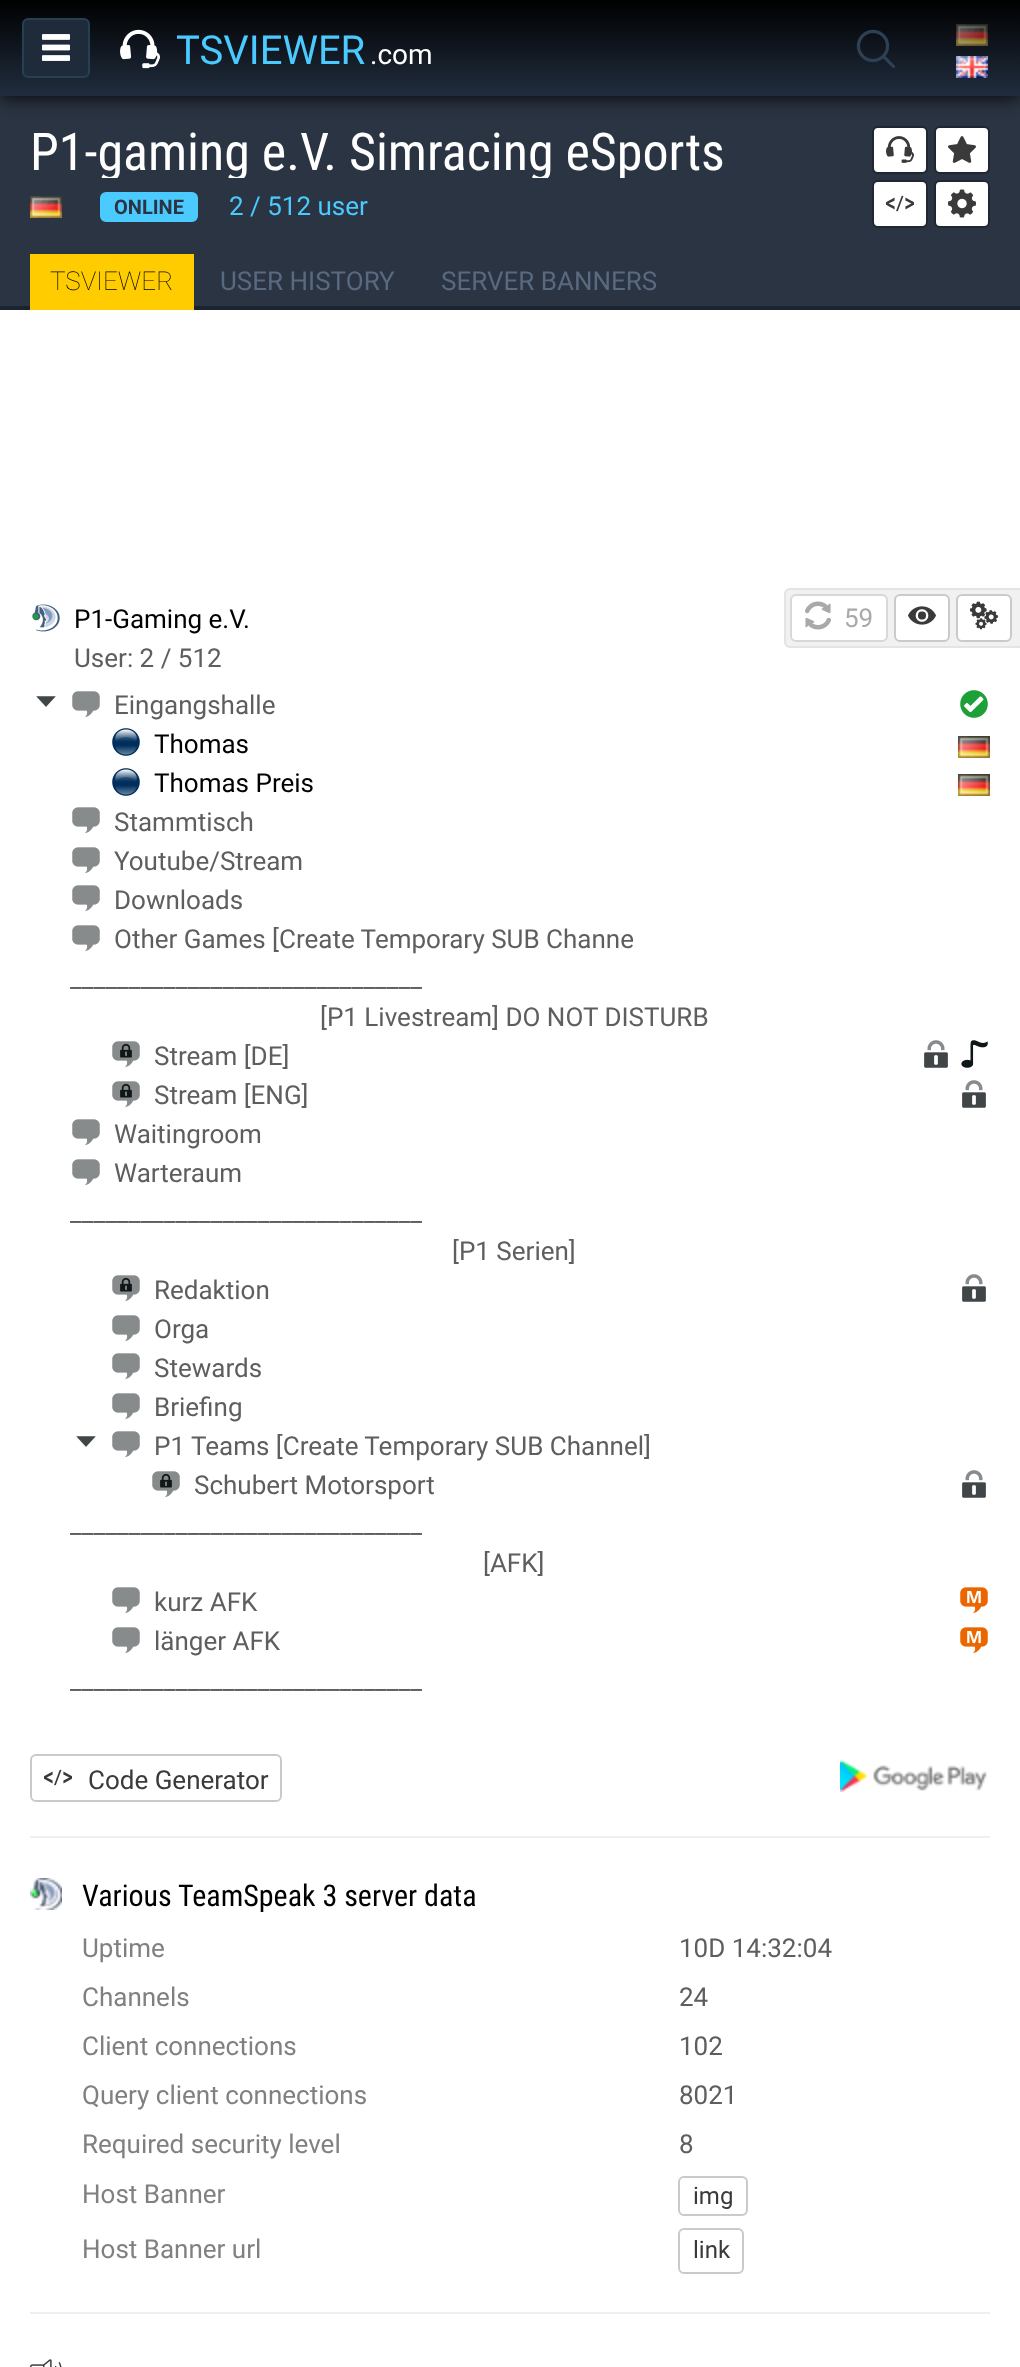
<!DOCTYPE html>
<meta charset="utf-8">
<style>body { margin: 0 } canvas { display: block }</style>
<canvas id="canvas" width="1020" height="2367"></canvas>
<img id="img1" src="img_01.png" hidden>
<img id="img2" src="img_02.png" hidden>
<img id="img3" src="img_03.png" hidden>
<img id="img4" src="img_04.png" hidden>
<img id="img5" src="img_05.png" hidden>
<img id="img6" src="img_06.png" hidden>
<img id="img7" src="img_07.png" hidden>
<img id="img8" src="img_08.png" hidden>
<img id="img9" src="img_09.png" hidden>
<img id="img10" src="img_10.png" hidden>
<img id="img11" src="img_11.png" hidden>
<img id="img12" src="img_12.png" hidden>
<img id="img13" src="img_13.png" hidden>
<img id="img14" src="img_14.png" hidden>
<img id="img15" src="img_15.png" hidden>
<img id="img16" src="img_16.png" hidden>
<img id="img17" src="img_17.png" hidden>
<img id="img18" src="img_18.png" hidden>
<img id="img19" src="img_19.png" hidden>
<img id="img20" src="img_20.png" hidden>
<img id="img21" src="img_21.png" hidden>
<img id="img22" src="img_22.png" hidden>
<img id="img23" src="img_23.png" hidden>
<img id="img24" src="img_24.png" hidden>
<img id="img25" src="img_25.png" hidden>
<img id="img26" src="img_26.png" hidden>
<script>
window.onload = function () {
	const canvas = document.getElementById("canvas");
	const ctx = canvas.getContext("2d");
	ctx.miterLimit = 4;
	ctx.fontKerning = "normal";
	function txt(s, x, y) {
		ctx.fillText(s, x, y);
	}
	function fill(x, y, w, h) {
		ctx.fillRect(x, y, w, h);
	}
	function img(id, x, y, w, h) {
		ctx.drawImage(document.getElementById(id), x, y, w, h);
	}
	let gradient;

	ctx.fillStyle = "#FFFFFF";
	fill(0, 0, 1020, 2367);
	ctx.fillStyle = "#2B3442";
	fill(0, 96, 1020, 210);
	ctx.fillStyle = "#FFFFFF";
	ctx.beginPath();
	ctx.roundRect(873, 127, 54, 46, 5);
	ctx.fill();
	ctx.strokeStyle = "#212732";
	ctx.lineWidth = 2;
	ctx.stroke();
	ctx.beginPath();
	ctx.roundRect(935, 127, 54, 46, 5);
	ctx.fill();
	ctx.stroke();
	ctx.fillStyle = "#000000";
	ctx.filter = "blur(10px)";
	ctx.beginPath();
	ctx.rect(0, 0, 1020, 96);
	ctx.fill();
	ctx.filter = "none";
	gradient = ctx.createLinearGradient(510, 0, 510, 96);
	gradient.addColorStop(0, "#000000");
	gradient.addColorStop(1, "#212D3E");
	ctx.fillStyle = gradient;
	fill(0, 0, 1020, 96);
	ctx.fillStyle = "#1F2B3A";
	ctx.beginPath();
	ctx.roundRect(23, 19, 66, 58, 5);
	ctx.fill();
	ctx.strokeStyle = "#254050";
	ctx.stroke();
	img("img1", 42, 34, 28, 27);
	img("img2", 120, 29, 40, 40);
	img("img3", 856, 29, 40, 39);
	img("img4", 956, 24, 32, 22);
	img("img5", 956, 56, 32, 22);
	img("img6", 886, 136, 28, 27);
	img("img7", 948, 136, 28, 27);
	ctx.fillStyle = "#FFFFFF";
	ctx.beginPath();
	ctx.roundRect(873, 181, 54, 46, 5);
	ctx.fill();
	ctx.strokeStyle = "#212732";
	ctx.stroke();
	img("img8", 886, 195, 28, 17);
	ctx.beginPath();
	ctx.roundRect(935, 181, 54, 46, 5);
	ctx.fill();
	ctx.stroke();
	img("img9", 948, 189, 28, 29);
	img("img10", 30, 196, 32, 22);
	ctx.fillStyle = "#4ACAFF";
	ctx.beginPath();
	ctx.roundRect(101, 193, 96, 28, 5);
	ctx.fill();
	ctx.strokeStyle = "#4ACAFF";
	ctx.stroke();
	ctx.fillStyle = "#1A2431";
	fill(0, 306, 1020, 4);
	ctx.fillStyle = "#FFCC00";
	fill(30, 254, 164, 56);
	ctx.fillStyle = "#EFEFEF";
	fill(30, 1836, 960, 2);
	img("img11", 32, 604, 28, 28);
	img("img12", 36, 696, 20, 11);
	img("img13", 72, 691, 28, 27);
	img("img14", 960, 690, 28, 28);
	img("img15", 112, 728, 28, 28);
	img("img16", 958, 736, 32, 22);
	img("img15", 112, 768, 28, 28);
	img("img16", 958, 774, 32, 22);
	img("img13", 72, 807, 28, 27);
	img("img13", 72, 847, 28, 27);
	img("img13", 72, 885, 28, 27);
	img("img13", 72, 925, 28, 27);
	img("img17", 112, 1041, 28, 27);
	img("img18", 924, 1040, 24, 28);
	img("img19", 961, 1040, 27, 28);
	img("img17", 112, 1081, 28, 27);
	img("img18", 962, 1080, 24, 28);
	img("img13", 72, 1119, 28, 27);
	img("img13", 72, 1159, 28, 27);
	img("img17", 112, 1275, 28, 27);
	img("img18", 962, 1274, 24, 28);
	img("img13", 112, 1315, 28, 27);
	img("img13", 112, 1353, 28, 27);
	img("img13", 112, 1393, 28, 27);
	img("img12", 76, 1436, 20, 11);
	img("img13", 112, 1431, 28, 27);
	img("img17", 152, 1471, 28, 27);
	img("img18", 962, 1470, 24, 28);
	img("img13", 112, 1587, 28, 27);
	img("img20", 960, 1587, 28, 27);
	img("img13", 112, 1627, 28, 27);
	img("img20", 960, 1627, 28, 27);
	ctx.fillStyle = "#F1F1F1";
	ctx.beginPath();
	ctx.roundRect(784, 588, 236, 60, [6, 0, 0, 6]);
	ctx.fill();
	ctx.beginPath();
	ctx.roundRect(785, 589, 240, 58, 5);
	ctx.strokeStyle = "#E4E4E4";
	ctx.stroke();
	ctx.fillStyle = "#FFFFFF";
	ctx.beginPath();
	ctx.roundRect(791, 595, 96, 46, 5);
	ctx.fill();
	ctx.strokeStyle = "#D8D8D8";
	ctx.stroke();
	img("img21", 805, 601, 26, 29);
	ctx.beginPath();
	ctx.roundRect(895, 595, 54, 46, 5);
	ctx.fill();
	ctx.strokeStyle = "#CACACA";
	ctx.stroke();
	img("img22", 908, 606, 28, 19);
	ctx.beginPath();
	ctx.roundRect(957, 595, 54, 46, 5);
	ctx.fill();
	ctx.stroke();
	img("img23", 970, 601, 28, 29);
	ctx.beginPath();
	ctx.roundRect(31, 1755, 250, 46, 5);
	ctx.stroke();
	img("img8", 44, 1769, 28, 17);
	img("img24", 840, 1760, 147, 32);
	img("img25", 30, 1878, 32, 32);
	ctx.fillStyle = "#EFEFEF";
	fill(30, 2312, 960, 2);
	ctx.beginPath();
	ctx.roundRect(679, 2177, 68, 38, 5);
	ctx.stroke();
	ctx.beginPath();
	ctx.roundRect(679, 2229, 64, 44, 5);
	ctx.stroke();
	img("img26", 30, 2359, 32, 8);
	ctx.font = "40px Roboto";
	ctx.fillStyle = "#4ACAFF";
	txt("TSVIEWER", 176, 64);
	ctx.font = "28px Roboto";
	ctx.fillStyle = "#FFFFFF";
	txt(".com", 370, 64);
	ctx.save();
	ctx.beginPath();
	ctx.rect(30, 126, 694, 52);
	ctx.clip();
	ctx.font = "52px Roboto Condensed";
	txt("P1-gaming e.V. Simracing eSports", 30, 170);
	ctx.restore();
	ctx.font = "bold 20px Roboto";
	ctx.fillStyle = "#2B3442";
	txt("ONLINE", 114, 214);
	ctx.font = "26px Roboto";
	ctx.fillStyle = "#4ACAFF";
	txt("2 / 512 user", 229, 215);
	ctx.font = "100 26px Roboto";
	ctx.fillStyle = "#000000";
	txt("TSVIEWER", 50, 290);
	ctx.font = "26px Roboto";
	ctx.fillStyle = "#586980";
	txt("USER HISTORY", 220, 290);
	txt("SERVER BANNERS", 441, 290);
	ctx.fillStyle = "#000000";
	txt("P1-Gaming e.V.", 74, 628);
	ctx.fillStyle = "#5E5E5E";
	txt("User: 2 / 512", 74, 667);
	txt("Eingangshalle", 114, 714);
	ctx.fillStyle = "#000000";
	txt("Thomas", 154, 753);
	txt("Thomas Preis", 154, 792);
	ctx.fillStyle = "#5E5E5E";
	txt("Stammtisch", 114, 831);
	txt("Youtube/Stream", 114, 870);
	txt("Downloads", 114, 909);
	txt("Other Games [Create Temporary SUB Channe", 114, 948);
	txt("______________________________", 70, 987);
	txt("[P1 Livestream] DO NOT DISTURB", 320, 1026);
	txt("Stream [DE]", 154, 1065);
	txt("Stream [ENG]", 154, 1104);
	txt("Waitingroom", 114, 1143);
	txt("Warteraum", 114, 1182);
	txt("______________________________", 70, 1221);
	txt("[P1 Serien]", 452, 1260);
	txt("Redaktion", 154, 1299);
	txt("Orga", 154, 1338);
	txt("Stewards", 154, 1377);
	txt("Briefing", 154, 1416);
	txt("P1 Teams [Create Temporary SUB Channel]", 154, 1455);
	txt("Schubert Motorsport", 194, 1494);
	txt("______________________________", 70, 1533);
	txt("[AFK]", 483, 1572);
	txt("kurz AFK", 154, 1611);
	txt("länger AFK", 154, 1650);
	txt("______________________________", 70, 1689);
	ctx.fillStyle = "#A9A9A9";
	txt("59", 844, 627);
	ctx.fillStyle = "#3A3A3A";
	txt("Code Generator", 88, 1789);
	ctx.font = "30px Roboto Condensed";
	ctx.fillStyle = "#000000";
	txt("Various TeamSpeak 3 server data", 82, 1906);
	ctx.font = "26px Roboto";
	ctx.fillStyle = "#808080";
	txt("Uptime", 82, 1957);
	ctx.fillStyle = "#5E5E5E";
	txt("10D 14:32:04", 679, 1957);
	ctx.fillStyle = "#808080";
	txt("Channels", 82, 2006);
	ctx.fillStyle = "#5E5E5E";
	txt("24", 679, 2006);
	ctx.fillStyle = "#808080";
	txt("Client connections", 82, 2055);
	ctx.fillStyle = "#5E5E5E";
	txt("102", 679, 2055);
	ctx.fillStyle = "#808080";
	txt("Query client connections", 82, 2104);
	ctx.fillStyle = "#5E5E5E";
	txt("8021", 679, 2104);
	ctx.fillStyle = "#808080";
	txt("Required security level", 82, 2153);
	ctx.fillStyle = "#5E5E5E";
	txt("8", 679, 2153);
	ctx.fillStyle = "#808080";
	txt("Host Banner", 82, 2203);
	ctx.font = "24px Roboto";
	ctx.fillStyle = "#3A3A3A";
	txt("img", 693, 2204);
	ctx.font = "26px Roboto";
	ctx.fillStyle = "#808080";
	txt("Host Banner url", 82, 2258);
	ctx.font = "24px Roboto";
	ctx.fillStyle = "#3A3A3A";
	txt("link", 693, 2258);
};
</script>
